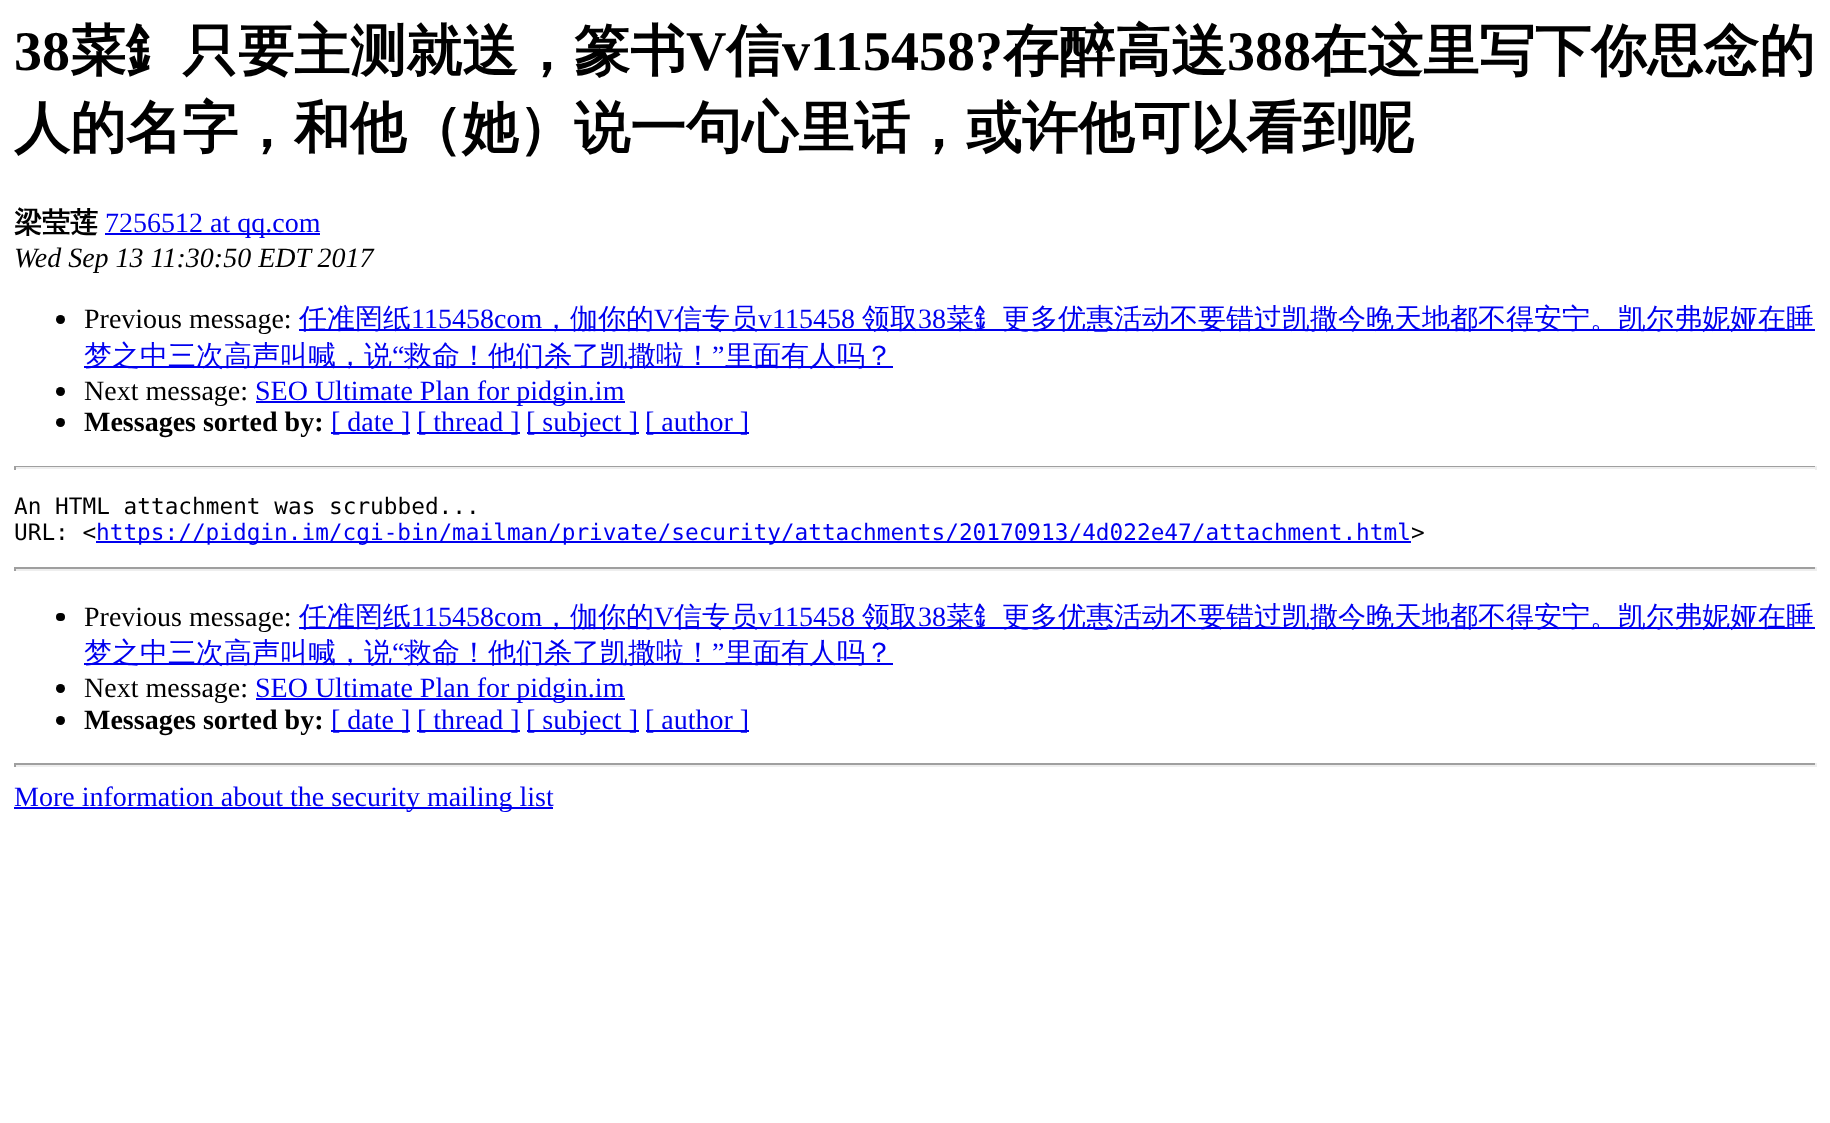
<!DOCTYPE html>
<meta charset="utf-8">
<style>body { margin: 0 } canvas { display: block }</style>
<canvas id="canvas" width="1830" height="1123"></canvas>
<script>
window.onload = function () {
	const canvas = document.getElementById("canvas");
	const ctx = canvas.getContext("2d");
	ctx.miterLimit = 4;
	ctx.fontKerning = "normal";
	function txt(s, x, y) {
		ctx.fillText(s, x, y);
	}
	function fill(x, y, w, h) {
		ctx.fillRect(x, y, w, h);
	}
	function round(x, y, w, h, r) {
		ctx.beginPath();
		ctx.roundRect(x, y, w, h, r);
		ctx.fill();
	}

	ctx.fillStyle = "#FFFFFF";
	fill(0, 0, 1830, 1123);
	ctx.fillStyle = "#0000EE";
	fill(105, 233, 215, 2);
	ctx.fillStyle = "#000000";
	ctx.beginPath();
	ctx.arc(60.5, 319.5, 4.5, 0, Math.PI * 2);
	ctx.fill();
	ctx.fillStyle = "#0000EE";
	fill(299, 329, 1516, 2);
	fill(84, 366, 809, 2);
	ctx.fillStyle = "#000000";
	ctx.beginPath();
	ctx.arc(60.5, 391.5, 4.5, 0, Math.PI * 2);
	ctx.fill();
	ctx.fillStyle = "#0000EE";
	fill(256, 401, 369, 2);
	ctx.fillStyle = "#000000";
	ctx.beginPath();
	ctx.arc(60.5, 422.5, 4.5, 0, Math.PI * 2);
	ctx.fill();
	ctx.fillStyle = "#0000EE";
	fill(331, 432, 79, 2);
	fill(417, 432, 103, 2);
	fill(527, 432, 112, 2);
	fill(646, 432, 103, 2);
	ctx.fillStyle = "#9F9F9F";
	fill(14, 466, 1803, 1);
	ctx.fillStyle = "#EEEEEE";
	fill(1815, 466, 2, 4);
	fill(14, 467, 1803, 2);
	ctx.fillStyle = "#9F9F9F";
	fill(14, 466, 2, 4);
	ctx.fillStyle = "#0000EE";
	fill(96, 541, 1315, 2);
	ctx.fillStyle = "#9F9F9F";
	fill(14, 567, 1803, 2);
	ctx.fillStyle = "#EEEEEE";
	fill(1815, 567, 2, 4);
	fill(14, 569, 1803, 2);
	ctx.fillStyle = "#9F9F9F";
	fill(14, 567, 2, 4);
	ctx.fillStyle = "#000000";
	round(56, 613, 9, 8, 4);
	ctx.fillStyle = "#0000EE";
	fill(299, 627, 1516, 2);
	fill(84, 663, 809, 2);
	ctx.fillStyle = "#000000";
	ctx.beginPath();
	ctx.arc(60.5, 688.5, 4.5, 0, Math.PI * 2);
	ctx.fill();
	ctx.fillStyle = "#0000EE";
	fill(256, 698, 369, 2);
	ctx.fillStyle = "#000000";
	ctx.beginPath();
	ctx.arc(60.5, 720.5, 4.5, 0, Math.PI * 2);
	ctx.fill();
	ctx.fillStyle = "#0000EE";
	fill(331, 730, 79, 2);
	fill(417, 730, 103, 2);
	fill(527, 730, 112, 2);
	fill(646, 730, 103, 2);
	ctx.fillStyle = "#9F9F9F";
	fill(14, 763, 1803, 2);
	ctx.fillStyle = "#EEEEEE";
	fill(1815, 763, 2, 4);
	fill(14, 765, 1803, 2);
	ctx.fillStyle = "#9F9F9F";
	fill(14, 763, 2, 4);
	ctx.fillStyle = "#0000EE";
	fill(14, 807, 539, 2);
	ctx.font = "bold 56px Liberation Serif";
	ctx.fillStyle = "#000000";
	txt("38", 14, 70);
	ctx.font = "bold 56px WenQuanYi Zen Hei";
	txt("菜釒只要主测就送，篆书", 70, 70);
	ctx.font = "bold 56px Liberation Serif";
	txt("V", 686, 70);
	ctx.font = "bold 56px WenQuanYi Zen Hei";
	txt("信", 726, 70);
	ctx.font = "bold 56px Liberation Serif";
	txt("v115458?", 782, 70);
	ctx.font = "bold 56px WenQuanYi Zen Hei";
	txt("存醉高送", 1003, 70);
	ctx.font = "bold 56px Liberation Serif";
	txt("388", 1227, 70);
	ctx.font = "bold 56px WenQuanYi Zen Hei";
	txt("在这里写下你思念的", 1311, 70);
	txt("人的名字，和他（她）说一句心里话，或许他可以看到呢", 14, 147);
	ctx.font = "bold 28px WenQuanYi Zen Hei";
	txt("梁莹莲", 14, 232);
	ctx.font = "28px Liberation Serif";
	ctx.fillStyle = "#0000EE";
	txt("7256512 at qq.com", 105, 232);
	ctx.font = "italic 28px Liberation Serif";
	ctx.fillStyle = "#000000";
	txt("Wed Sep 13 11:30:50 EDT 2017", 14, 267);
	ctx.font = "28px Liberation Serif";
	txt("Previous message:", 84, 328);
	ctx.font = "500 28px WenQuanYi Zen Hei";
	ctx.fillStyle = "#0000EE";
	txt("任准罔纸", 299, 328);
	ctx.font = "28px Liberation Serif";
	txt("115458com", 411, 328);
	ctx.font = "500 28px WenQuanYi Zen Hei";
	txt("，伽你的", 542, 328);
	ctx.font = "28px Liberation Serif";
	txt("V", 654, 328);
	ctx.font = "500 28px WenQuanYi Zen Hei";
	txt("信专员", 674, 328);
	ctx.font = "28px Liberation Serif";
	txt("v115458", 758, 328);
	ctx.font = "500 28px WenQuanYi Zen Hei";
	txt("领取", 862, 328);
	ctx.font = "28px Liberation Serif";
	txt("38", 918, 328);
	ctx.font = "500 28px WenQuanYi Zen Hei";
	txt("菜釒更多优惠活动不要错过凯撒今晚天地都不得安宁。凯尔弗妮娅在睡", 946, 328);
	txt("梦之中三次高声叫喊，说", 84, 365);
	ctx.font = "28px Liberation Serif";
	txt("“", 392, 365);
	ctx.font = "500 28px WenQuanYi Zen Hei";
	txt("救命！他们杀了凯撒啦！", 404, 365);
	ctx.font = "28px Liberation Serif";
	txt("”", 712, 365);
	ctx.font = "500 28px WenQuanYi Zen Hei";
	txt("里面有人吗？", 725, 365);
	ctx.font = "28px Liberation Serif";
	ctx.fillStyle = "#000000";
	txt("Next message:", 84, 400);
	ctx.fillStyle = "#0000EE";
	txt("SEO Ultimate Plan for pidgin.im", 255, 400);
	ctx.font = "bold 28px Liberation Serif";
	ctx.fillStyle = "#000000";
	txt("Messages sorted by:", 84, 431);
	ctx.font = "28px Liberation Serif";
	ctx.fillStyle = "#0000EE";
	txt("[ date ]", 331, 431);
	txt("[ thread ]", 417, 431);
	txt("[ subject ]", 526, 431);
	txt("[ author ]", 645, 431);
	ctx.font = "22.75px DejaVu Sans Mono";
	ctx.fillStyle = "#000000";
	txt("An HTML attachment was scrubbed...", 14, 514);
	txt("URL: <", 14, 540);
	ctx.fillStyle = "#0000EE";
	txt("https://pidgin.im/cgi-bin/mailman/private/security/attachments/20170913/4d022e47/attachment.html", 96, 540);
	ctx.fillStyle = "#000000";
	txt(">", 1411, 540);
	ctx.font = "28px Liberation Serif";
	txt("Previous message:", 84, 626);
	ctx.font = "500 28px WenQuanYi Zen Hei";
	ctx.fillStyle = "#0000EE";
	txt("任准罔纸", 299, 626);
	ctx.font = "28px Liberation Serif";
	txt("115458com", 411, 626);
	ctx.font = "500 28px WenQuanYi Zen Hei";
	txt("，伽你的", 542, 626);
	ctx.font = "28px Liberation Serif";
	txt("V", 654, 626);
	ctx.font = "500 28px WenQuanYi Zen Hei";
	txt("信专员", 674, 626);
	ctx.font = "28px Liberation Serif";
	txt("v115458", 758, 626);
	ctx.font = "500 28px WenQuanYi Zen Hei";
	txt("领取", 862, 626);
	ctx.font = "28px Liberation Serif";
	txt("38", 918, 626);
	ctx.font = "500 28px WenQuanYi Zen Hei";
	txt("菜釒更多优惠活动不要错过凯撒今晚天地都不得安宁。凯尔弗妮娅在睡", 946, 626);
	txt("梦之中三次高声叫喊，说", 84, 662);
	ctx.font = "28px Liberation Serif";
	txt("“", 392, 662);
	ctx.font = "500 28px WenQuanYi Zen Hei";
	txt("救命！他们杀了凯撒啦！", 404, 662);
	ctx.font = "28px Liberation Serif";
	txt("”", 712, 662);
	ctx.font = "500 28px WenQuanYi Zen Hei";
	txt("里面有人吗？", 725, 662);
	ctx.font = "28px Liberation Serif";
	ctx.fillStyle = "#000000";
	txt("Next message:", 84, 697);
	ctx.fillStyle = "#0000EE";
	txt("SEO Ultimate Plan for pidgin.im", 255, 697);
	ctx.font = "bold 28px Liberation Serif";
	ctx.fillStyle = "#000000";
	txt("Messages sorted by:", 84, 729);
	ctx.font = "28px Liberation Serif";
	ctx.fillStyle = "#0000EE";
	txt("[ date ]", 331, 729);
	txt("[ thread ]", 417, 729);
	txt("[ subject ]", 526, 729);
	txt("[ author ]", 645, 729);
	txt("More information about the security mailing list", 14, 806);
};
</script>
